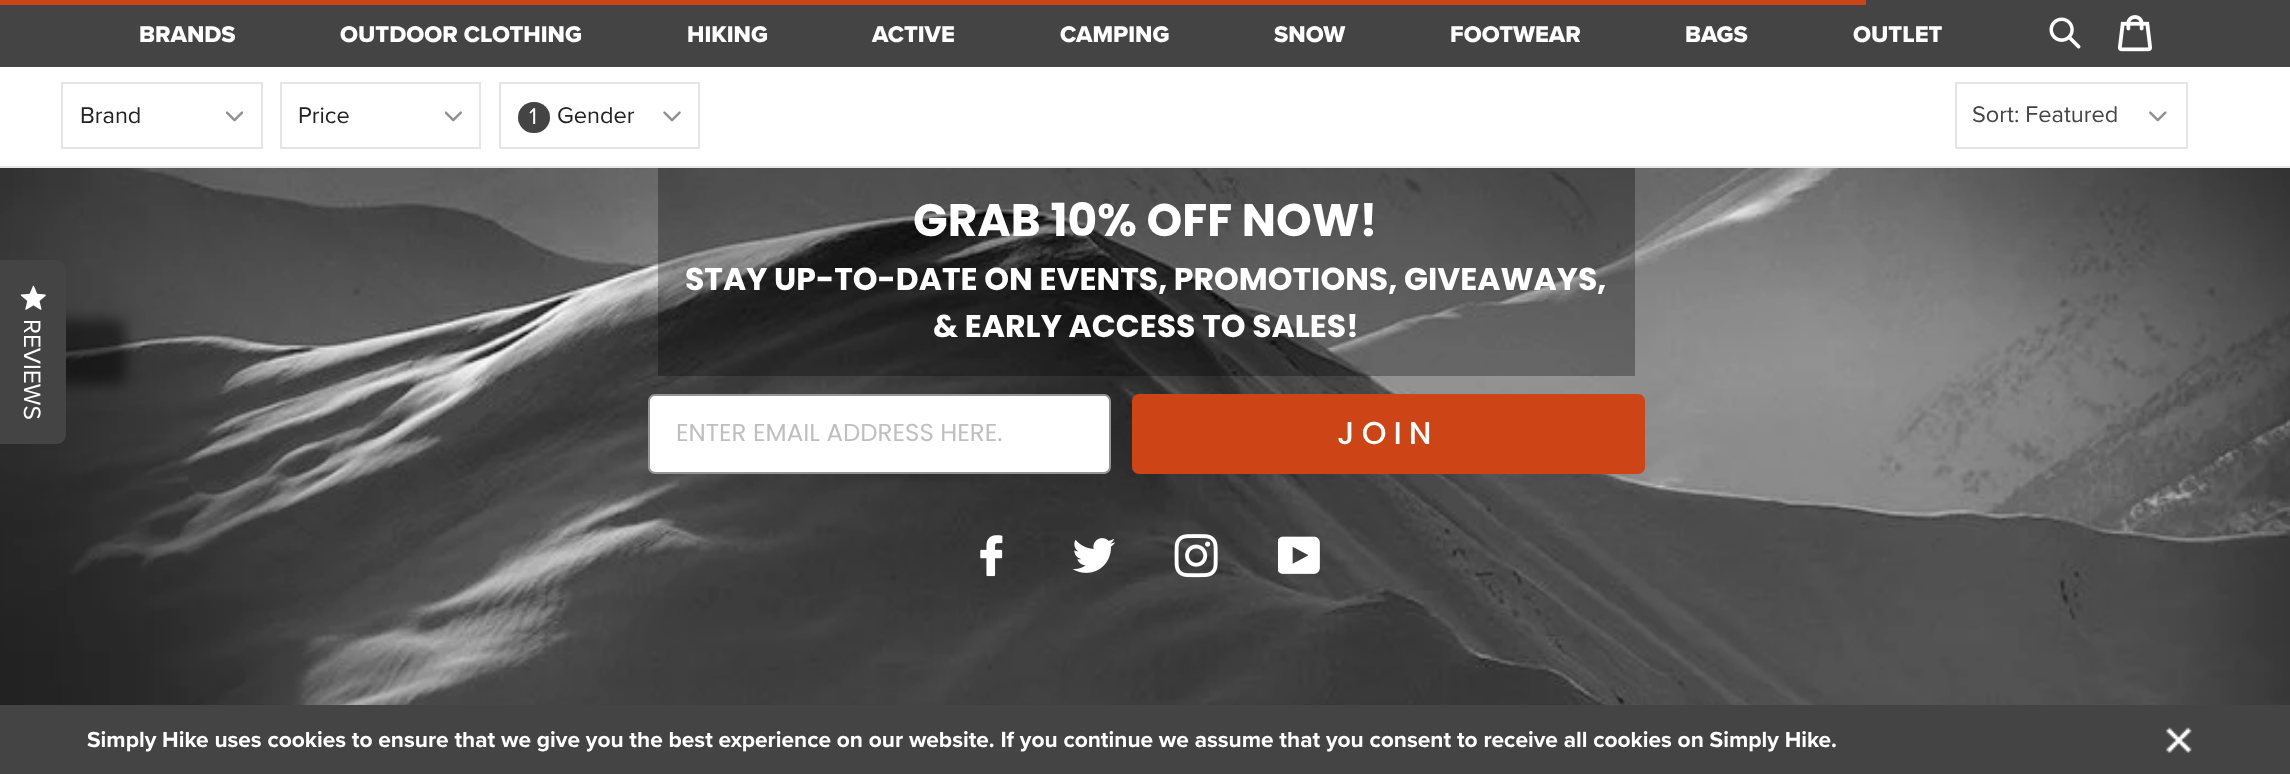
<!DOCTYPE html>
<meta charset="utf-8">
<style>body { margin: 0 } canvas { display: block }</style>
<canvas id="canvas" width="2290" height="774"></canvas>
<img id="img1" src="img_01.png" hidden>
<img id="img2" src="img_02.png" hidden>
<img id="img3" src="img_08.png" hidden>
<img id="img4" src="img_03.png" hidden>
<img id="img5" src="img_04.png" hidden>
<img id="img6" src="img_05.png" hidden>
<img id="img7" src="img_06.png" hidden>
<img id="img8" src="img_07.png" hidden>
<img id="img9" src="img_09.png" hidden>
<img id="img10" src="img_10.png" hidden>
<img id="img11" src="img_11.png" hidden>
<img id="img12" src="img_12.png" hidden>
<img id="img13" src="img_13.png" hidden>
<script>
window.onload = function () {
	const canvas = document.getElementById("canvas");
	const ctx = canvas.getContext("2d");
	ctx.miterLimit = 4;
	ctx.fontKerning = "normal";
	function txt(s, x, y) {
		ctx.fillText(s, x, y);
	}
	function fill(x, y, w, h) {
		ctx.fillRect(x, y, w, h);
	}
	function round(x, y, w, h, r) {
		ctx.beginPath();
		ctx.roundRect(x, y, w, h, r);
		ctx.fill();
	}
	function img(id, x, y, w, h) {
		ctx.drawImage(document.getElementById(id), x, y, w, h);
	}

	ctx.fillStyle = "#FFFFFF";
	fill(0, 0, 2290, 774);
	ctx.fillStyle = "#444444";
	fill(0, 0, 2290, 67);
	ctx.fillStyle = "#CD4416";
	fill(0, 0, 1866, 5);
	img("img1", 2049, 17, 32, 32);
	img("img2", 2118, 15, 34, 37);
	img("img3", 0, 168, 2290, 537);
	ctx.fillStyle = "rgba(0, 0, 0, 0.5)";
	ctx.filter = "blur(7px)";
	ctx.beginPath();
	ctx.roundRect(-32, 319, 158, 66, 11);
	ctx.fill();
	ctx.filter = "none";
	ctx.fillStyle = "#444444";
	ctx.beginPath();
	ctx.moveTo(66, 271);
	ctx.lineTo(66, 434);
	ctx.bezierCurveTo(66, 440, 62, 444, 56, 444);
	ctx.lineTo(0, 444);
	ctx.lineTo(0, 260);
	ctx.lineTo(56, 260);
	ctx.bezierCurveTo(62, 260, 66, 265, 66, 271);
	ctx.closePath();
	ctx.fill();
	img("img4", 20, 285, 26, 25);
	ctx.fillStyle = "#E5E5E5";
	fill(0, 166, 2290, 2);
	ctx.strokeStyle = "#E5E5E5";
	ctx.lineWidth = 2;
	ctx.strokeRect(62, 83, 200, 65);
	img("img5", 226, 111, 17, 11);
	ctx.strokeRect(281, 83, 199, 65);
	img("img6", 445, 111, 17, 11);
	ctx.strokeRect(500, 83, 199, 65);
	ctx.fillStyle = "#444444";
	round(518, 102, 32, 31, 15.5);
	img("img7", 663, 111, 18, 11);
	img("img8", 2149, 111, 18, 11);
	ctx.strokeRect(1956, 83, 231, 65);
	ctx.fillStyle = "rgba(0, 0, 0, 0.3)";
	fill(658, 168, 977, 208);
	ctx.fillStyle = "#FFFFFF";
	ctx.beginPath();
	ctx.roundRect(649, 395, 461, 78, 6);
	ctx.fill();
	ctx.strokeStyle = "#949596";
	ctx.stroke();
	ctx.fillStyle = "#CD4416";
	round(1132, 394, 513, 80, 7);
	img("img9", 980, 535, 23, 42);
	img("img10", 1073, 538, 43, 35);
	img("img11", 1174, 534, 44, 44);
	img("img12", 1278, 536, 42, 38);
	ctx.fillStyle = "#444444";
	fill(0, 705, 2290, 69);
	img("img13", 2166, 727, 26, 26);
	ctx.font = "800 23.5px Proxima Nova";
	ctx.fillStyle = "#FFFFFF";
	txt("BRANDS", 139, 42);
	txt("OUTDOOR CLOTHING", 340, 42);
	txt("HIKING", 687, 42);
	txt("ACTIVE", 872, 42);
	txt("CAMPING", 1060, 42);
	txt("SNOW", 1274, 42);
	txt("FOOTWEAR", 1450, 42);
	txt("BAGS", 1685, 42);
	txt("OUTLET", 1853, 42);
	ctx.font = "24.5px Proxima Nova";
	ctx.save();
	ctx.translate(24, 319);
	ctx.rotate(90 * Math.PI / 180);
	ctx.fillText("REVIEWS", 0, 0);
	ctx.restore();
	ctx.font = "23.5px Proxima Nova";
	ctx.fillStyle = "#222222";
	txt("Brand", 80, 123);
	txt("Price", 298, 123);
	ctx.fillStyle = "#FFFFFF";
	txt("1", 529, 124);
	ctx.fillStyle = "#222222";
	txt("Gender", 557, 123);
	ctx.fillStyle = "#444444";
	txt("Sort: Featured", 1972, 122);
	ctx.font = "bold 45.5px Poppins";
	ctx.fillStyle = "#FFFFFF";
	txt("GRAB 10% OFF NOW!", 913, 236);
	ctx.font = "bold 31.5px Poppins";
	txt("STAY UP-TO-DATE ON EVENTS, PROMOTIONS, GIVEAWAYS,", 685, 290);
	txt("& EARLY ACCESS TO SALES!", 933, 337);
	ctx.font = "24.5px Poppins";
	ctx.fillStyle = "#BFBFC0";
	txt("ENTER EMAIL ADDRESS HERE.", 676, 441);
	ctx.letterSpacing = "7px";
	ctx.font = "500 31.5px Poppins";
	ctx.fillStyle = "#FFFFFF";
	txt("JOIN", 1337, 444);
	ctx.letterSpacing = "0px";
	ctx.font = "bold 22.68px Proxima Nova";
	txt("Simply Hike uses cookies to ensure that we give you the best experience on our website. If you continue we assume that you consent to receive all cookies on Simply Hike.", 87, 747);
};
</script>
